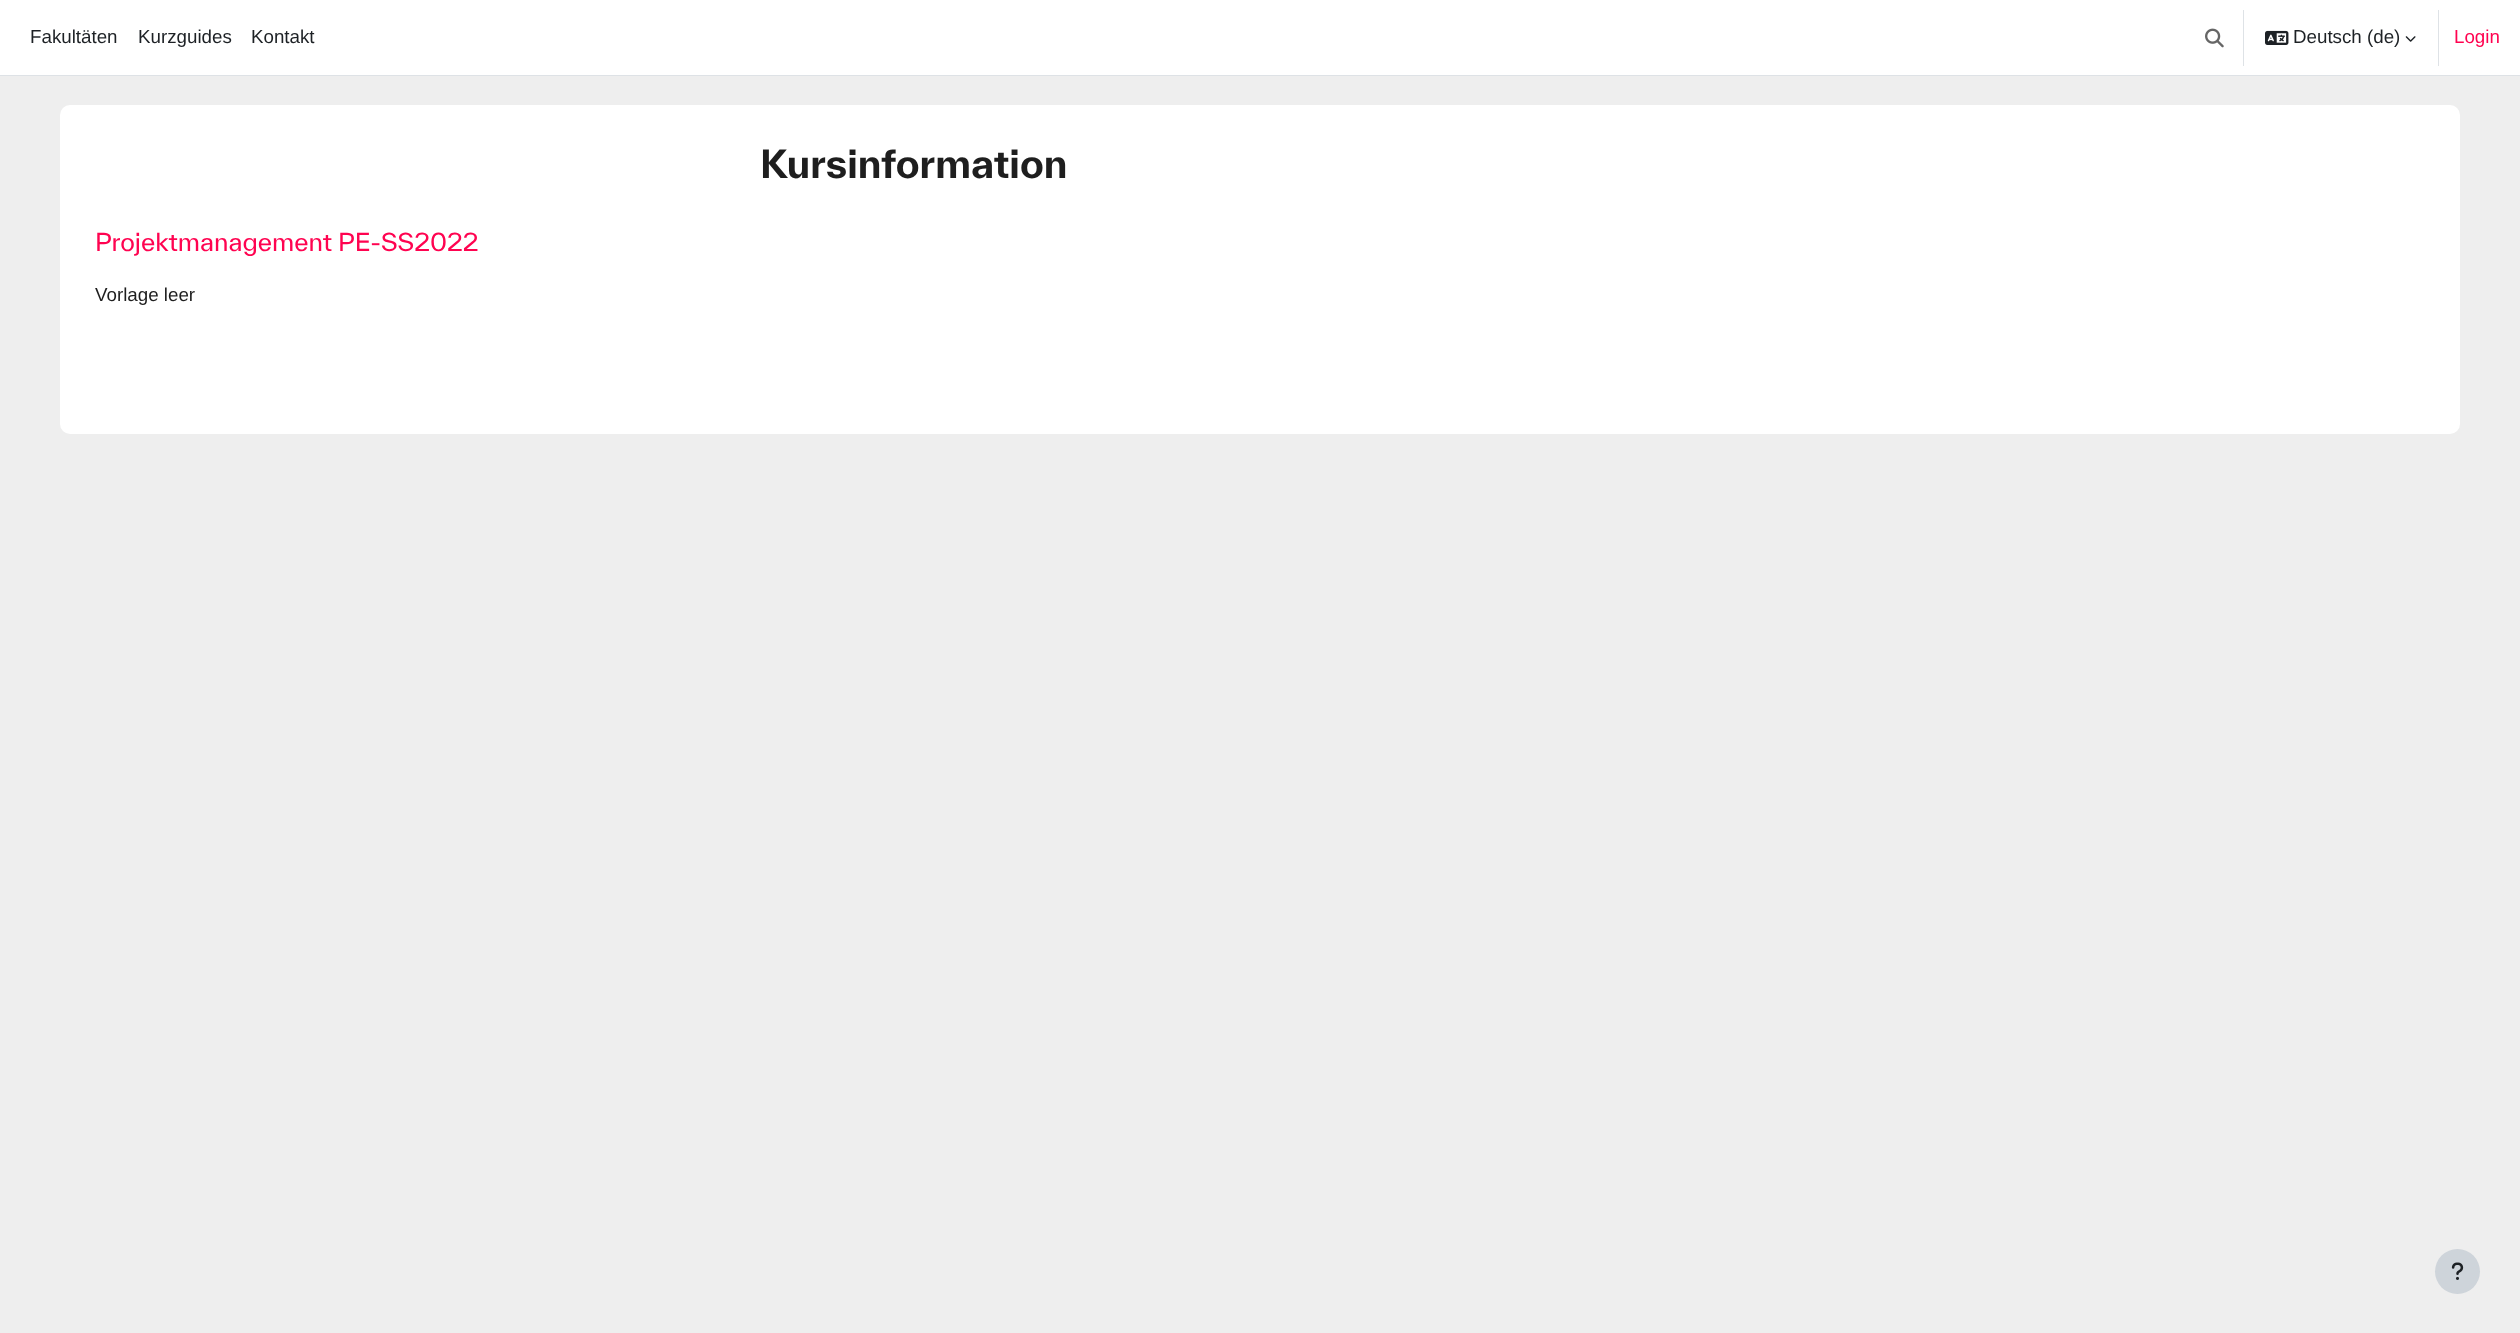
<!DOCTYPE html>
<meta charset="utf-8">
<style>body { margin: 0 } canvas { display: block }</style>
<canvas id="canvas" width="2520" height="1333"></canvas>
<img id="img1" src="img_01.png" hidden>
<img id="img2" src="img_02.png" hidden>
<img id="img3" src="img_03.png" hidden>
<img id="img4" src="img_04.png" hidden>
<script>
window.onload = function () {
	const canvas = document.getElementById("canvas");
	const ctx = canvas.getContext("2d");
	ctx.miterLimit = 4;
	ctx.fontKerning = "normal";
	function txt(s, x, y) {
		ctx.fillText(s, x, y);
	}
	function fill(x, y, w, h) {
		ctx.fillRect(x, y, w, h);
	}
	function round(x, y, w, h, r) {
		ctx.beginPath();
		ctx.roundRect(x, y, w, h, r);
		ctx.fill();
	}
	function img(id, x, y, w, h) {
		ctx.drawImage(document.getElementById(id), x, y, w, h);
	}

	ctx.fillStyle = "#EEEEEE";
	fill(0, 0, 2520, 1333);
	ctx.fillStyle = "#FFFFFF";
	fill(0, 0, 2520, 75);
	ctx.fillStyle = "#DEE2E6";
	fill(0, 75, 2520, 1);
	img("img1", 2205, 28, 19, 20);
	fill(2243, 10, 1, 56);
	img("img2", 2265, 30, 24, 15);
	img("img3", 2405, 36, 11, 6);
	fill(2438, 10, 1, 56);
	ctx.fillStyle = "#FFFFFF";
	round(60, 105, 2400, 329, 10);
	ctx.fillStyle = "#CED4DA";
	ctx.beginPath();
	ctx.arc(2457.5, 1271.5, 22.5, 0, Math.PI * 2);
	ctx.fill();
	img("img4", 2451, 1262, 13, 18);
	ctx.font = "18.75px Liberation Sans";
	ctx.fillStyle = "#1D2125";
	txt("Fakultäten", 30, 43);
	txt("Kurzguides", 138, 43);
	txt("Kontakt", 251, 43);
	txt("Deutsch (de)", 2293, 43);
	ctx.fillStyle = "#FF0350";
	txt("Login", 2454, 43);
	ctx.font = "bold 37.5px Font";
	ctx.fillStyle = "#1E1E1E";
	txt("Kursinformation", 760, 178);
	ctx.font = "24px Font";
	ctx.fillStyle = "#FF0350";
	txt("Projektmanagement PE-SS2022", 95, 251);
	ctx.font = "18.75px Liberation Sans";
	ctx.fillStyle = "#1E1E1E";
	txt("Vorlage leer", 95, 301);
};
</script>
